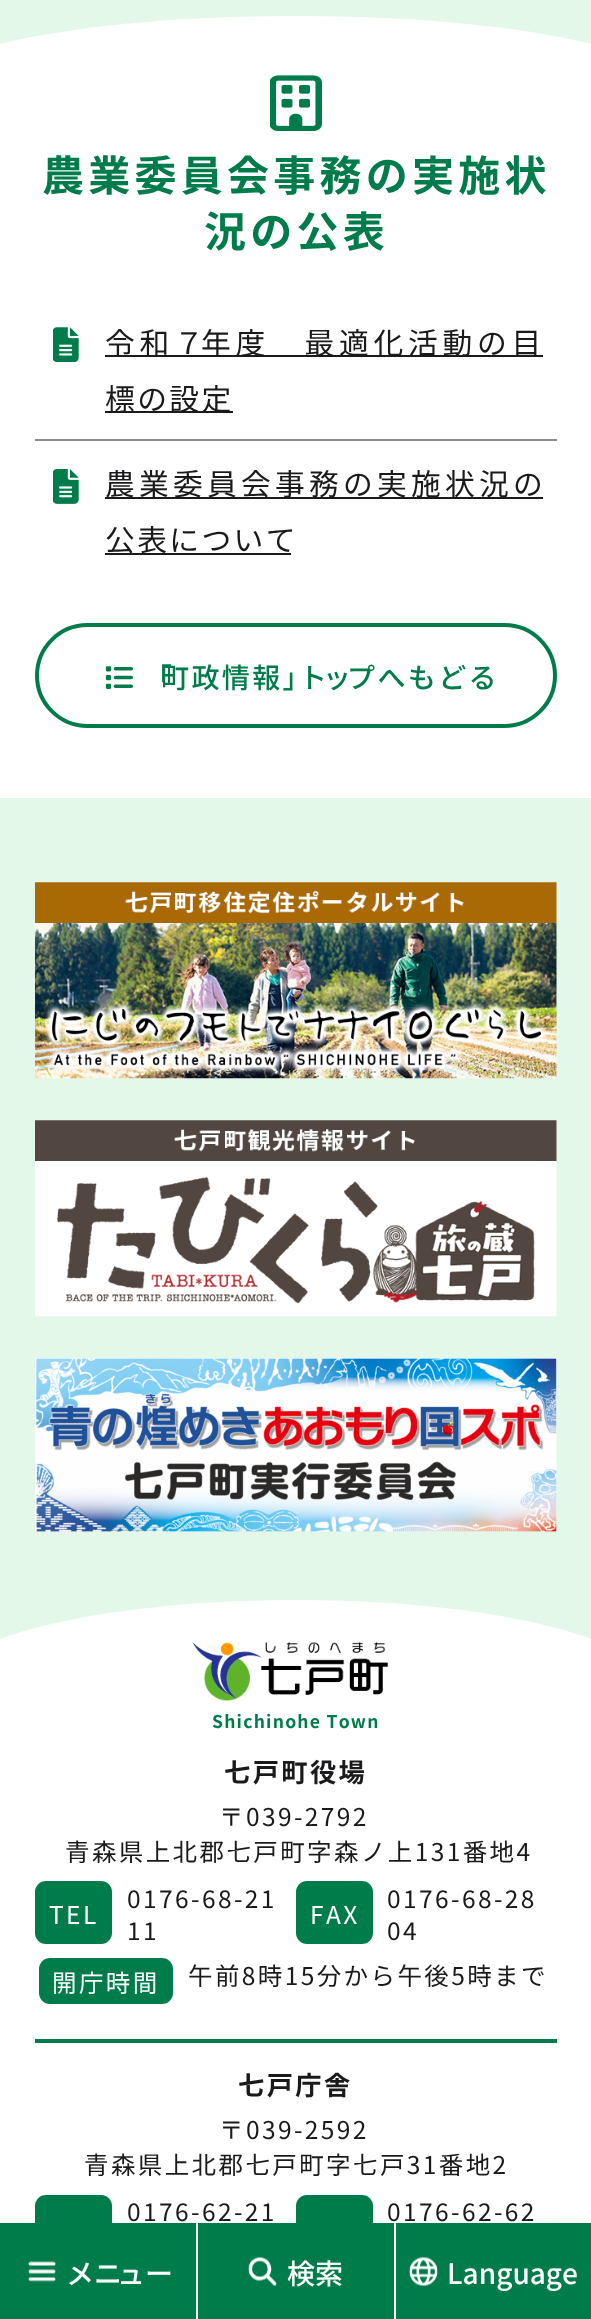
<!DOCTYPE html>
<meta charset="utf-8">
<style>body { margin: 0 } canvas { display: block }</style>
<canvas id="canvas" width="591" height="2319"></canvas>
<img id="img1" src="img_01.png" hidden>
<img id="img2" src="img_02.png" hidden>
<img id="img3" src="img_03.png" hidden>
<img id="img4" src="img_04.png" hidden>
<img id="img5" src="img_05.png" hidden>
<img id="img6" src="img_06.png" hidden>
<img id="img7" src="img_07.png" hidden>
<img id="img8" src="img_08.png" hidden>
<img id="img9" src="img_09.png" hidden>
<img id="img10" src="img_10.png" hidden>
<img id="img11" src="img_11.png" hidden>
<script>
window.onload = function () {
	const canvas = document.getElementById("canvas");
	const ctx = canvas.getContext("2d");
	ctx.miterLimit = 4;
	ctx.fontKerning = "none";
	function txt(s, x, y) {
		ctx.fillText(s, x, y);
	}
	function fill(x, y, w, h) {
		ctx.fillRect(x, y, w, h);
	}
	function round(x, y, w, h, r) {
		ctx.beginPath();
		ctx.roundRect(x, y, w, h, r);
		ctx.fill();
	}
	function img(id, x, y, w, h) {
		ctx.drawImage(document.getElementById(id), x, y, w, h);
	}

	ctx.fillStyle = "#E4F8E9";
	fill(0, 0, 591, 2319);
	ctx.fillStyle = "#FFFFFF";
	ctx.beginPath();
	ctx.moveTo(296, 16);
	ctx.bezierCurveTo(502, 16, 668, 48, 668, 87);
	ctx.lineTo(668, 798);
	ctx.lineTo(-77, 798);
	ctx.lineTo(-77, 87);
	ctx.bezierCurveTo(-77, 48, 90, 16, 296, 16);
	ctx.closePath();
	ctx.fill();
	img("img1", 270, 75, 52, 56);
	ctx.fillStyle = "#8D8D8E";
	fill(35, 439, 522, 2);
	img("img2", 53, 327, 26, 35);
	ctx.fillStyle = "#1A1A1C";
	fill(105, 355, 438, 2);
	fill(105, 411, 128, 2);
	img("img3", 53, 469, 26, 35);
	fill(105, 497, 438, 2);
	fill(105, 553, 186, 2);
	ctx.beginPath();
	ctx.roundRect(37, 625, 518, 101, 50.5);
	ctx.strokeStyle = "#007C4B";
	ctx.lineWidth = 4;
	ctx.stroke();
	img("img4", 105, 666, 28, 23);
	img("img5", 35, 882, 522, 197);
	img("img6", 35, 1120, 522, 197);
	img("img7", 35, 1358, 522, 174);
	ctx.fillStyle = "#FFFFFF";
	ctx.beginPath();
	ctx.moveTo(296, 1600);
	ctx.bezierCurveTo(492, 1600, 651, 1639, 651, 1688);
	ctx.lineTo(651, 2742);
	ctx.lineTo(-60, 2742);
	ctx.lineTo(-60, 1688);
	ctx.bezierCurveTo(-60, 1639, 100, 1600, 296, 1600);
	ctx.closePath();
	ctx.fill();
	img("img8", 192, 1641, 196, 60);
	ctx.fillStyle = "#007C4B";
	round(35, 1881, 77, 63, 11);
	round(296, 1881, 77, 63, 11);
	round(39, 1958, 134, 46, 11);
	fill(35, 2039, 522, 4);
	round(35, 2195, 77, 63, 11);
	round(296, 2195, 77, 63, 11);
	ctx.fillStyle = "#FFFFFF";
	fill(296, 2223, 77, 35);
	ctx.fillStyle = "#007C4B";
	fill(0, 2223, 196, 96);
	img("img9", 28, 2261, 28, 21);
	fill(198, 2223, 196, 96);
	img("img10", 248, 2257, 29, 29);
	fill(396, 2223, 195, 96);
	img("img11", 409, 2257, 29, 29);
	ctx.letterSpacing = "4.25px";
	ctx.font = "bold 42px Noto Sans JP";
	txt("農業委員会事務の実施状", 42, 191);
	txt("況の公表", 204, 247);
	ctx.letterSpacing = "4.75px";
	ctx.font = "29.75px Noto Sans JP";
	ctx.fillStyle = "#1A1A1C";
	txt("令和７", 105, 354);
	txt("年度　最適化活動の目", 201, 354);
	ctx.letterSpacing = "2.4px";
	txt("標の設定", 105, 410);
	ctx.letterSpacing = "4.25px";
	txt("農業委員会事務の実施状況の", 105, 495);
	ctx.letterSpacing = "2.4px";
	txt("公表について", 105, 551);
	ctx.font = "500 28px Noto Sans JP";
	ctx.fillStyle = "#007C4B";
	txt("「", 144, 688);
	txt("町政情報」", 161, 688);
	txt("ト", 299, 688);
	txt("ッ", 323, 688);
	txt("プへもどる", 347, 688);
	ctx.letterSpacing = "1.25px";
	ctx.font = "bold 17.5px Noto Sans JP";
	txt("Shichinohe Town", 212, 1728);
	ctx.letterSpacing = "2.4px";
	ctx.font = "bold 26.25px Noto Sans JP";
	ctx.fillStyle = "#1A1A1C";
	txt("七戸町役場", 224, 1782);
	ctx.font = "24.5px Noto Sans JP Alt";
	txt("〒039-2792", 219, 1826);
	txt("青森県上北郡七戸町字森ノ上131番地4", 65, 1861);
	ctx.font = "24.5px Noto Sans JP";
	ctx.fillStyle = "#FFFFFF";
	txt("TEL", 49, 1924);
	ctx.fillStyle = "#1A1A1C";
	txt("0176-68-21", 127, 1908);
	txt("11", 127, 1940);
	ctx.fillStyle = "#FFFFFF";
	txt("FAX", 310, 1924);
	ctx.fillStyle = "#1A1A1C";
	txt("0176-68-28", 387, 1908);
	txt("04", 387, 1940);
	ctx.fillStyle = "#FFFFFF";
	txt("開庁時間", 52, 1992);
	ctx.font = "24.5px Noto Sans JP Alt";
	ctx.fillStyle = "#1A1A1C";
	txt("午前8時15分から午後5時まで", 188, 1985);
	ctx.font = "bold 26.25px Noto Sans JP";
	txt("七戸庁舎", 238, 2095);
	ctx.font = "24.5px Noto Sans JP Alt";
	txt("〒039-2592", 219, 2139);
	ctx.font = "24.5px Noto Sans JP";
	txt("青森県上北郡七戸町字七戸31番地2", 84, 2174);
	txt("0176-62-21", 127, 2221);
	txt("0176-62-62", 387, 2221);
	ctx.letterSpacing = "0px";
	ctx.font = "500 28px Noto Sans JP";
	ctx.fillStyle = "#FFFFFF";
	txt("メニ", 66, 2284);
	txt("ュー", 117, 2284);
	txt("検索", 287, 2284);
	txt("Language", 447, 2284);
};
</script>
